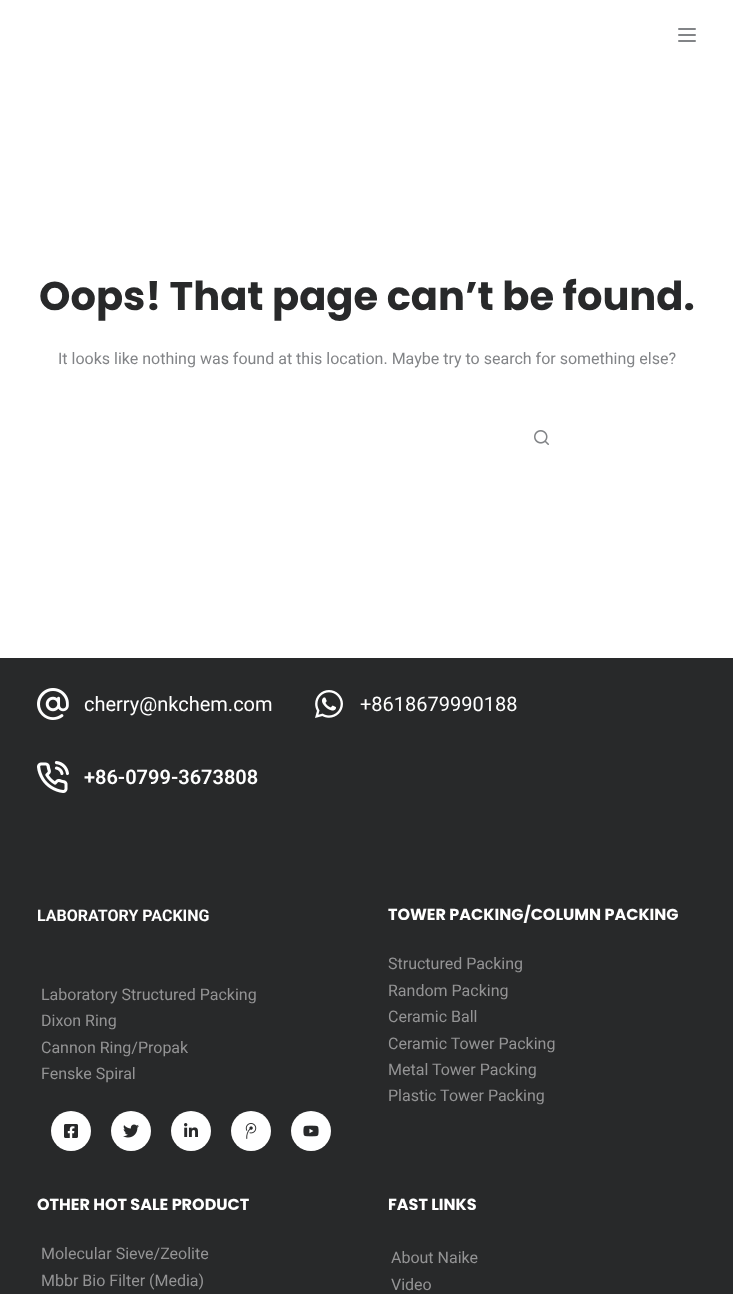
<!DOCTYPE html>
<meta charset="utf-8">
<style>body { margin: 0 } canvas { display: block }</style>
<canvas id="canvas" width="733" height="1294"></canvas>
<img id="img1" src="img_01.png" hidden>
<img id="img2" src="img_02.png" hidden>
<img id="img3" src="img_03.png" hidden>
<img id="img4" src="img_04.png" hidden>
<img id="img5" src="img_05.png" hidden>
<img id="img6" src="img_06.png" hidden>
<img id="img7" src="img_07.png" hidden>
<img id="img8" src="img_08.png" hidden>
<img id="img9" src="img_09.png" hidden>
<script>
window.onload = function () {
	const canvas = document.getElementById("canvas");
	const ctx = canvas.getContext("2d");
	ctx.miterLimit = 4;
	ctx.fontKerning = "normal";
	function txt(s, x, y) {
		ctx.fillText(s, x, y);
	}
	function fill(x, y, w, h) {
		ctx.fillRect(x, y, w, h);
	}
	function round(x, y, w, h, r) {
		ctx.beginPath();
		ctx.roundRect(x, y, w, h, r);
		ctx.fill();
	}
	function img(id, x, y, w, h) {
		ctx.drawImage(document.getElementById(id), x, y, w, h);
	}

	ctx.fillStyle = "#FFFFFF";
	fill(0, 0, 733, 1294);
	ctx.fillStyle = "#828487";
	round(678, 28, 18, 2, 1);
	round(678, 34, 18, 2, 1);
	round(678, 40, 18, 2, 1);
	img("img1", 534, 430, 15, 15);
	ctx.fillStyle = "#28292A";
	fill(0, 658, 733, 636);
	img("img2", 37, 688, 32, 32);
	img("img3", 315, 690, 28, 28);
	img("img4", 37, 761, 32, 32);
	ctx.fillStyle = "#FFFFFF";
	ctx.beginPath();
	ctx.arc(71, 1131, 20, 0, Math.PI * 2);
	ctx.fill();
	img("img5", 64, 1124, 14, 14);
	ctx.beginPath();
	ctx.arc(131, 1131, 20, 0, Math.PI * 2);
	ctx.fill();
	img("img6", 123, 1124, 16, 14);
	ctx.beginPath();
	ctx.arc(191, 1131, 20, 0, Math.PI * 2);
	ctx.fill();
	img("img7", 184, 1123, 14, 14);
	ctx.beginPath();
	ctx.arc(251, 1131, 20, 0, Math.PI * 2);
	ctx.fill();
	img("img8", 245, 1123, 12, 16);
	ctx.beginPath();
	ctx.arc(311, 1131, 20, 0, Math.PI * 2);
	ctx.fill();
	img("img9", 303, 1125, 16, 12);
	ctx.font = "bold 40px Poppins";
	ctx.fillStyle = "#28292A";
	txt("Oops! That page can’t be found.", 39, 310);
	ctx.font = "16px Roboto";
	ctx.fillStyle = "#828487";
	txt("It looks like nothing was found at this location. Maybe try to search for something else?", 58, 364);
	ctx.font = "20px Roboto";
	ctx.fillStyle = "#FFFFFF";
	txt("cherry@nkchem.com", 84, 711);
	txt("+8618679990188", 360, 711);
	ctx.font = "600 20px Roboto";
	txt("+86-0799-3673808", 84, 784);
	ctx.font = "bold 16px Roboto";
	txt("LABORATORY PACKING", 37, 921);
	ctx.font = "16px Roboto";
	ctx.fillStyle = "#949495";
	txt("Laboratory Structured Packing", 41, 1000);
	txt("Dixon Ring", 41, 1026);
	txt("Cannon Ring/Propak", 41, 1053);
	txt("Fenske Spiral", 41, 1079);
	ctx.font = "bold 16px Poppins";
	ctx.fillStyle = "#FFFFFF";
	txt("TOWER PACKING/COLUMN PACKING", 388, 920);
	ctx.font = "16px Roboto";
	ctx.fillStyle = "#949495";
	txt("Structured Packing", 388, 969);
	txt("Random Packing", 388, 996);
	txt("Ceramic Ball", 388, 1022);
	txt("Ceramic Tower Packing", 388, 1049);
	txt("Metal Tower Packing", 388, 1075);
	txt("Plastic Tower Packing", 388, 1101);
	ctx.font = "bold 16px Poppins";
	ctx.fillStyle = "#FFFFFF";
	txt("OTHER HOT SALE PRODUCT", 37, 1210);
	ctx.font = "16px Roboto";
	ctx.fillStyle = "#949495";
	txt("Molecular Sieve/Zeolite", 41, 1259);
	txt("Mbbr Bio Filter (Media)", 41, 1286);
	ctx.font = "bold 16px Poppins";
	ctx.fillStyle = "#FFFFFF";
	txt("FAST LINKS", 388, 1210);
	ctx.font = "16px Roboto";
	ctx.fillStyle = "#949495";
	txt("About Naike", 391, 1263);
	txt("Video", 391, 1290);
};
</script>
